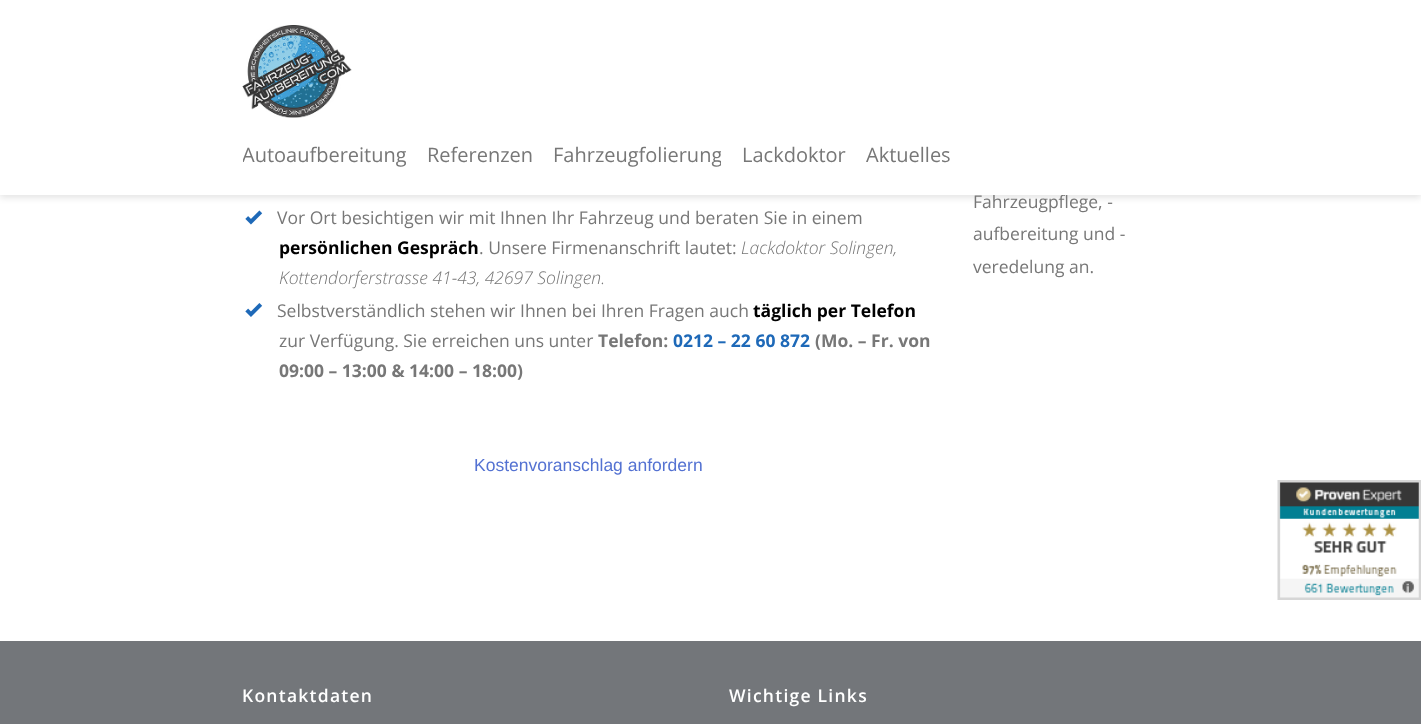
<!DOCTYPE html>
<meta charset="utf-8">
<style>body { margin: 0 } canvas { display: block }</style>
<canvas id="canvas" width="1421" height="724"></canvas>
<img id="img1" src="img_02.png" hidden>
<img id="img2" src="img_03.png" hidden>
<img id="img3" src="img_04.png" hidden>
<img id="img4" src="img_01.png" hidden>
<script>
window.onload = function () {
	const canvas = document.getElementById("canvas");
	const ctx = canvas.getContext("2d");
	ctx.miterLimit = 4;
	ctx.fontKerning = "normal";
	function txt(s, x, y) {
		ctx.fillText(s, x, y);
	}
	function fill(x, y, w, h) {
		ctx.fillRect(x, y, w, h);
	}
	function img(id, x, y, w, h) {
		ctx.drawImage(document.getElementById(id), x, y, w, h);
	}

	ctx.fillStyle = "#FFFFFF";
	fill(0, 0, 1421, 724);
	ctx.fillStyle = "rgba(0, 0, 0, 0.1)";
	ctx.filter = "blur(3px)";
	ctx.beginPath();
	ctx.rect(0, 3, 1421, 195);
	ctx.fill();
	ctx.filter = "none";
	img("img1", 245, 210, 18, 15);
	img("img2", 245, 303, 18, 14);
	ctx.fillStyle = "#73767A";
	fill(0, 641, 1421, 83);
	img("img3", 1277, 480, 144, 120);
	ctx.font = "17.5px Open Sans";
	ctx.fillStyle = "#777777";
	txt("Vor Ort besichtigen wir mit Ihnen Ihr Fahrzeug und beraten Sie in einem", 277, 224);
	ctx.font = "bold 17.5px Open Sans";
	ctx.fillStyle = "#000000";
	txt("persönlichen Gespräch", 279, 254);
	ctx.font = "17.5px Open Sans";
	ctx.fillStyle = "#777777";
	txt(". Unsere Firmenanschrift lautet:", 479, 254);
	ctx.font = "italic 300 17.5px Open Sans";
	txt("Lackdoktor Solingen,", 741, 254);
	txt("Kottendorferstrasse 41-43, 42697 Solingen.", 279, 284);
	ctx.font = "17.5px Open Sans";
	txt("Selbstverständlich stehen wir Ihnen bei Ihren Fragen auch", 277, 317);
	ctx.font = "bold 17.5px Open Sans";
	ctx.fillStyle = "#000000";
	txt("täglich per Telefon", 753, 317);
	ctx.font = "17.5px Open Sans";
	ctx.fillStyle = "#777777";
	txt("zur Verfügung. Sie erreichen uns unter", 279, 347);
	ctx.font = "bold 17.5px Open Sans";
	txt("Telefon:", 598, 347);
	ctx.fillStyle = "#1E69B8";
	txt("0212 – 22 60 872", 673, 347);
	ctx.fillStyle = "#777777";
	txt("(Mo. – Fr. von", 815, 347);
	txt("09:00 – 13:00 & 14:00 – 18:00)", 279, 377);
	ctx.font = "17.5px Liberation Sans";
	ctx.fillStyle = "#5472D2";
	txt("Kostenvoranschlag anfordern", 474, 471);
	ctx.font = "17.5px Open Sans";
	ctx.fillStyle = "#777777";
	txt("Fahrzeugpflege, -", 973, 208);
	ctx.fillStyle = "#FFFFFF";
	fill(0, 0, 1421, 195);
	ctx.font = "20px Open Sans";
	ctx.fillStyle = "#777777";
	txt("Aktuelles", 866, 162);
	txt("Lackdoktor", 742, 162);
	ctx.save();
	ctx.beginPath();
	ctx.rect(533, 124, 188, 62);
	ctx.clip();
	txt("Fahrzeugfolierung", 553, 162);
	ctx.restore();
	txt("Referenzen", 427, 162);
	ctx.save();
	ctx.beginPath();
	ctx.rect(243, 124, 163, 62);
	ctx.clip();
	txt("Autoaufbereitung", 242, 162);
	ctx.restore();
	img("img4", 242, 25, 110, 93);
	ctx.font = "17.5px Open Sans";
	txt("aufbereitung und -", 973, 240);
	txt("veredelung an.", 973, 273);
	ctx.letterSpacing = "1.25px";
	ctx.font = "600 17.5px Open Sans";
	ctx.fillStyle = "#FFFFFF";
	txt("Kontaktdaten", 242, 702);
	txt("Wichtige Links", 729, 702);
};
</script>
